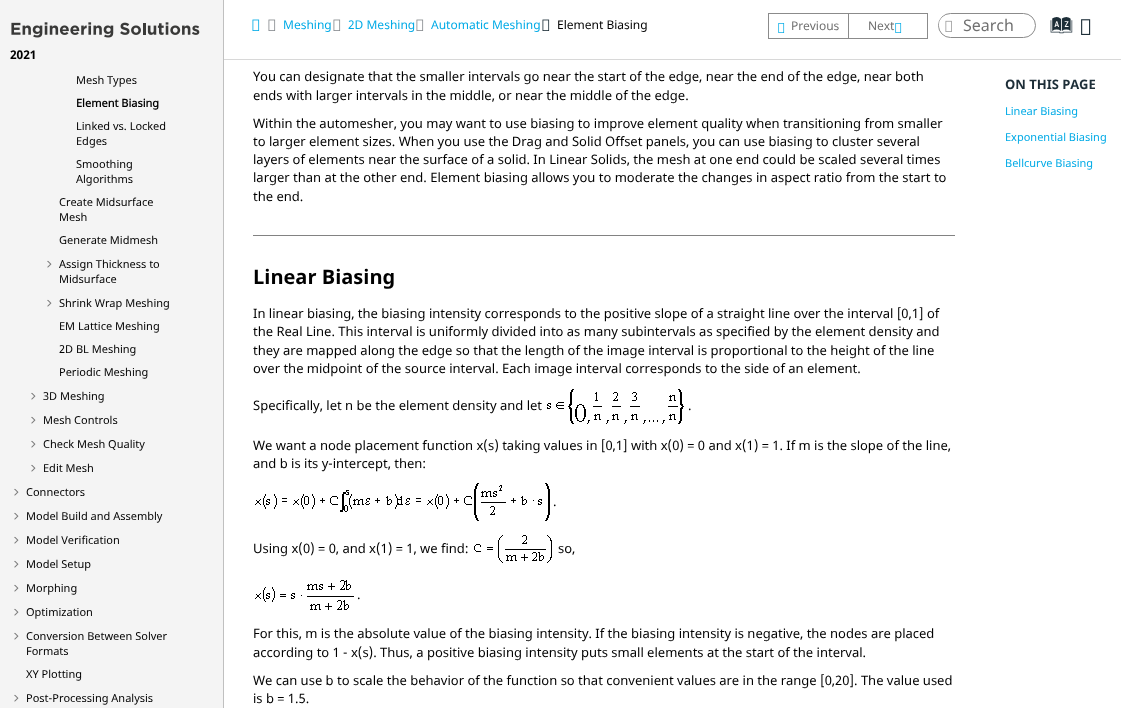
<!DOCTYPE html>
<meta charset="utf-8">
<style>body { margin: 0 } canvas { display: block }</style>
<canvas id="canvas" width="1121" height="708"></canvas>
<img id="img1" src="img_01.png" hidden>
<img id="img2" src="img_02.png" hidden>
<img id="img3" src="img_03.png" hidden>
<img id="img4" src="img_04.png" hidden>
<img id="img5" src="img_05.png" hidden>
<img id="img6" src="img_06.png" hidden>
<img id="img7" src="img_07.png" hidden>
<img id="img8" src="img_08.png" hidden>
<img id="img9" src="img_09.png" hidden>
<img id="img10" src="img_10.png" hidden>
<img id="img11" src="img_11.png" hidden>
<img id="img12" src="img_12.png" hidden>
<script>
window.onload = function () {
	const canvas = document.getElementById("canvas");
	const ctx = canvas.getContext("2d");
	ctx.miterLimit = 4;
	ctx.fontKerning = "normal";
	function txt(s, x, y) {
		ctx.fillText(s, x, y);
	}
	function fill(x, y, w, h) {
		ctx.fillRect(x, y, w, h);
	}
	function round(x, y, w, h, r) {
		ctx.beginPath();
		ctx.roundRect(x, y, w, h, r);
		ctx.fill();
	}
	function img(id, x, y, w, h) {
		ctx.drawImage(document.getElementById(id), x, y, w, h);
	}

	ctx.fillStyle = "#FFFFFF";
	fill(0, 0, 1121, 708);
	ctx.fillStyle = "#F4F4F4";
	fill(0, 0, 223, 708);
	ctx.fillStyle = "#C0C0C0";
	fill(223, 0, 1, 708);
	img("img1", 11, 22, 189, 16);
	img("img2", 47, 260, 5, 8);
	img("img2", 47, 299, 5, 8);
	img("img2", 31, 392, 5, 8);
	img("img2", 31, 416, 5, 8);
	img("img2", 31, 440, 5, 8);
	img("img2", 31, 464, 5, 8);
	img("img2", 14, 488, 5, 8);
	img("img2", 14, 512, 5, 8);
	img("img2", 14, 536, 5, 8);
	img("img2", 14, 560, 5, 8);
	img("img2", 14, 584, 5, 8);
	img("img2", 14, 608, 5, 8);
	img("img2", 14, 632, 5, 8);
	img("img2", 14, 694, 5, 8);
	ctx.fillStyle = "#D8D8D8";
	fill(224, 59, 897, 1);
	img("img3", 252, 19, 8, 12);
	img("img4", 268, 19, 8, 12);
	img("img4", 333, 19, 8, 12);
	img("img4", 416, 19, 8, 12);
	img("img5", 542, 19, 8, 12);
	ctx.fillStyle = "#8B8B8B";
	fill(768, 13, 80, 1);
	fill(768, 38, 80, 1);
	fill(768, 13, 1, 26);
	img("img6", 778, 23, 7, 10);
	ctx.strokeStyle = "#8B8B8B";
	ctx.strokeRect(848.5, 13.5, 79, 25);
	img("img6", 895, 23, 7, 10);
	ctx.beginPath();
	ctx.roundRect(938.5, 13.5, 97, 24, 12);
	ctx.stroke();
	ctx.fillStyle = "#FFFFFF";
	round(939, 15, 20, 19, 9.5);
	img("img7", 945, 20, 7, 12);
	img("img8", 1081, 19, 10, 16);
	ctx.fillStyle = "#828282";
	fill(253, 235, 702, 1);
	img("img9", 547, 389, 137, 35);
	img("img10", 255, 483, 295, 38);
	img("img11", 474, 535, 78, 28);
	img("img12", 255, 580, 99, 30);
	ctx.font = "bold 12px Noto Sans";
	ctx.fillStyle = "#000000";
	txt("2021", 10, 59);
	ctx.font = "11px Noto Sans";
	txt("Mesh Types", 76, 84);
	ctx.font = "bold 11px 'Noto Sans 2'";
	txt("Element Biasing", 76, 107);
	ctx.font = "11px Noto Sans";
	txt("Linked vs. Locked", 76, 130);
	txt("Edges", 76, 145);
	txt("Smoothing", 76, 168);
	txt("Algorithms", 76, 183);
	txt("Create Midsurface", 59, 206);
	txt("Mesh", 59, 221);
	txt("Generate Midmesh", 59, 244);
	txt("Assign Thickness to", 59, 268);
	txt("Midsurface", 59, 283);
	txt("Shrink Wrap Meshing", 59, 307);
	txt("EM Lattice Meshing", 59, 330);
	txt("2D BL Meshing", 59, 353);
	txt("Periodic Meshing", 59, 376);
	txt("3D Meshing", 43, 400);
	txt("Mesh Controls", 43, 424);
	txt("Check Mesh Quality", 43, 448);
	txt("Edit Mesh", 43, 472);
	txt("Connectors", 26, 496);
	txt("Model Build and Assembly", 26, 520);
	txt("Model Verification", 26, 544);
	txt("Model Setup", 26, 568);
	txt("Morphing", 26, 592);
	txt("Optimization", 26, 616);
	txt("Conversion Between Solver", 26, 640);
	txt("Formats", 26, 655);
	txt("XY Plotting", 26, 678);
	txt("Post-Processing Analysis", 26, 702);
	ctx.font = "12px Noto Sans";
	ctx.fillStyle = "#00AAE6";
	txt("Meshing", 283, 29);
	txt("2D Meshing", 348, 29);
	txt("Automatic Meshing", 431, 29);
	ctx.fillStyle = "#000000";
	txt("Element Biasing", 557, 29);
	ctx.fillStyle = "#707070";
	txt("Previous", 791, 30);
	txt("Next", 868, 30);
	ctx.font = "16px Noto Sans";
	txt("Search", 963, 31);
	ctx.font = "23px Oxygen";
	ctx.fillStyle = "#1D2E38";
	txt("a", 1053, 36);
	ctx.font = "13px Noto Sans";
	ctx.fillStyle = "#000000";
	txt("You can designate that the smaller intervals go near the start of the edge, near the end of the edge, near both", 253, 81);
	txt("ends with larger intervals in the middle, or near the middle of the edge.", 253, 100);
	txt("Within the automesher, you may want to use biasing to improve element quality when transitioning from smaller", 253, 128);
	txt("to larger element sizes. When you use the Drag and Solid Offset panels, you can use biasing to cluster several", 253, 146);
	txt("layers of elements near the surface of a solid. In Linear Solids, the mesh at one end could be scaled several times", 253, 164);
	txt("larger than at the other end. Element biasing allows you to moderate the changes in aspect ratio from the start to", 253, 182);
	txt("the end.", 253, 201);
	ctx.font = "bold 20px Noto Sans";
	txt("Linear Biasing", 253, 284);
	ctx.font = "13px Noto Sans";
	txt("In linear biasing, the biasing intensity corresponds to the positive slope of a straight line over the interval [0,1] of", 253, 318);
	txt("the Real Line. This interval is uniformly divided into as many subintervals as specified by the element density and", 253, 336);
	txt("they are mapped along the edge so that the length of the image interval is proportional to the height of the line", 253, 355);
	txt("over the midpoint of the source interval. Each image interval corresponds to the side of an element.", 253, 373);
	txt("Specifically, let n be the element density and let", 253, 410);
	txt(".", 688, 410);
	txt("We want a node placement function x(s) taking values in [0,1] with x(0) = 0 and x(1) = 1. If m is the slope of the line,", 253, 450);
	txt("and b is its y-intercept, then:", 253, 468);
	txt(".", 553, 506);
	txt("Using x(0) = 0, and x(1) = 1, we find:", 253, 553);
	txt("so,", 558, 553);
	txt(".", 357, 599);
	txt("For this, m is the absolute value of the biasing intensity. If the biasing intensity is negative, the nodes are placed", 253, 638);
	txt("according to 1 - x(s). Thus, a positive biasing intensity puts small elements at the start of the interval.", 253, 657);
	txt("We can use b to scale the behavior of the function so that convenient values are in the range [0,20]. The value used", 253, 685);
	txt("is b = 1.5.", 253, 703);
	ctx.font = "bold 13px Noto Sans";
	ctx.fillStyle = "#1D2E38";
	txt("ON THIS PAGE", 1005, 89);
	ctx.font = "11px Noto Sans";
	ctx.fillStyle = "#00AAE6";
	txt("Linear Biasing", 1005, 115);
	txt("Exponential Biasing", 1005, 141);
	txt("Bellcurve Biasing", 1005, 167);
};
</script>
